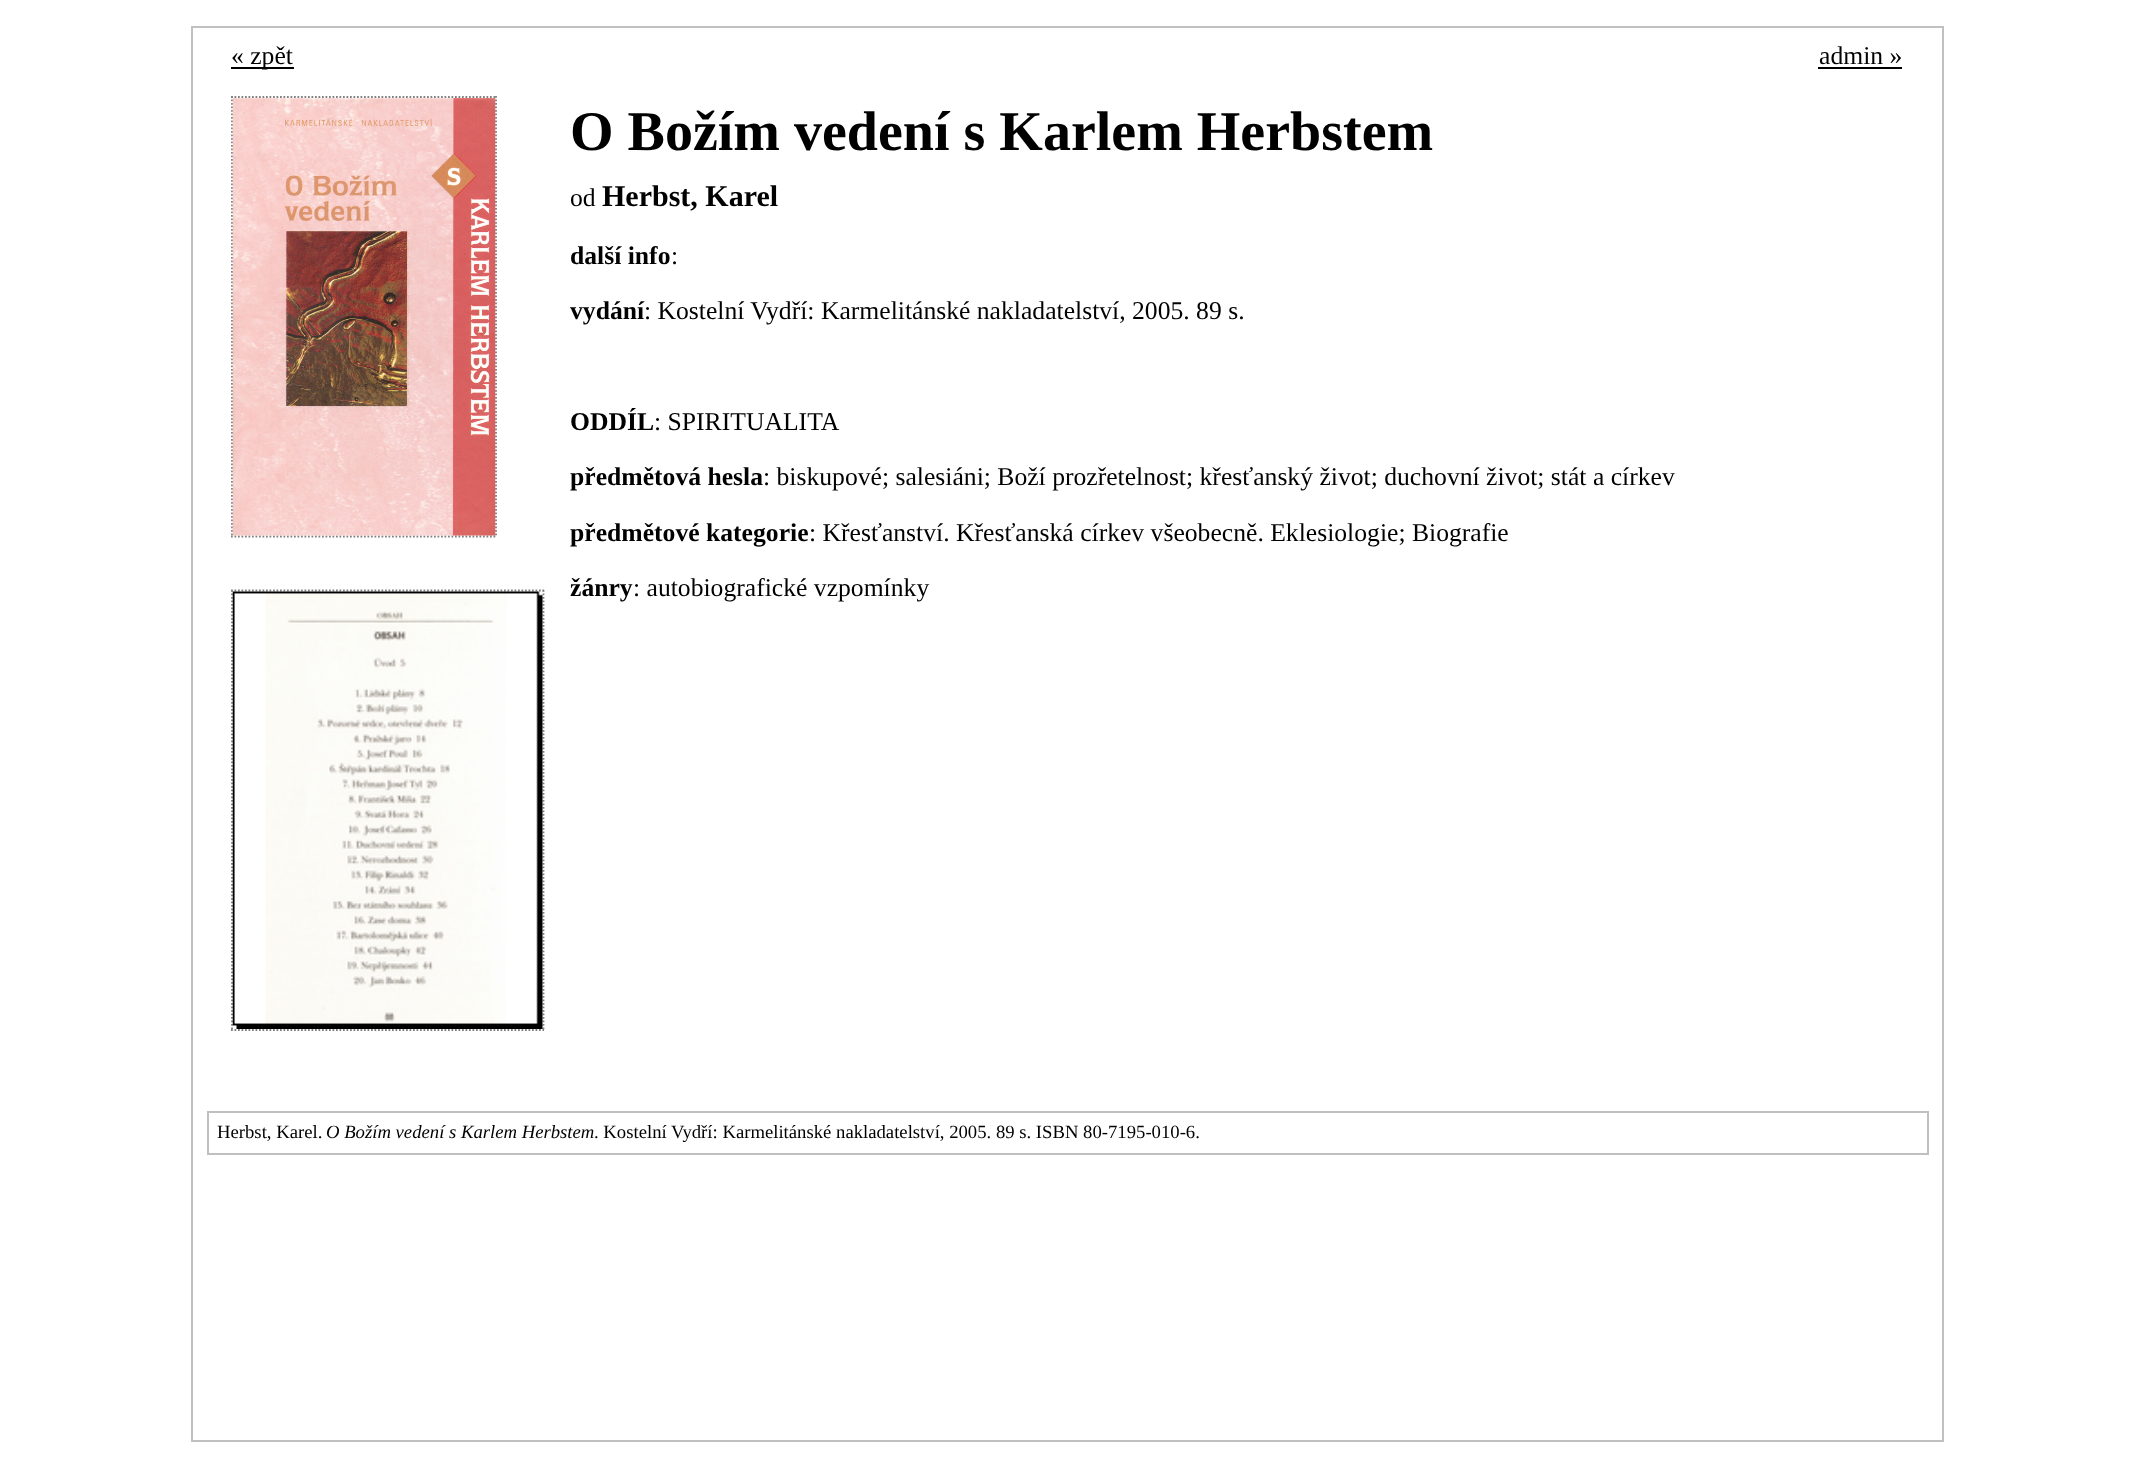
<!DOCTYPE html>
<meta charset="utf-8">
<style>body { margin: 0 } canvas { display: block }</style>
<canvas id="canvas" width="2132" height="1468"></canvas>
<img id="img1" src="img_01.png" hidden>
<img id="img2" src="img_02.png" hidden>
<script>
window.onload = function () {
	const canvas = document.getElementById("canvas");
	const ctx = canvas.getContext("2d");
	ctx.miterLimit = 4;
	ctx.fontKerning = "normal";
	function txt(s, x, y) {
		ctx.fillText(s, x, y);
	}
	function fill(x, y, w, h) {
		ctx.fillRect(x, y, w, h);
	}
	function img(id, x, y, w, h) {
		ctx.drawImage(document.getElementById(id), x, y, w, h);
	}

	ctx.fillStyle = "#FFFFFF";
	fill(0, 0, 2132, 1468);
	ctx.strokeStyle = "#C0C0C0";
	ctx.lineWidth = 2;
	ctx.strokeRect(192, 27, 1751, 1414);
	ctx.fillStyle = "#000000";
	fill(231, 67, 63, 2);
	fill(1818, 67, 84, 2);
	ctx.beginPath();
	ctx.moveTo(231, 97);
	ctx.lineTo(497, 97);
	ctx.strokeStyle = "#808080";
	ctx.lineWidth = 1.8;
	ctx.setLineDash([1.75, 1.75]);
	ctx.stroke();
	ctx.beginPath();
	ctx.moveTo(496, 96);
	ctx.lineTo(496, 537);
	ctx.stroke();
	ctx.beginPath();
	ctx.moveTo(231, 536.5);
	ctx.lineTo(497, 536.5);
	ctx.stroke();
	ctx.beginPath();
	ctx.moveTo(232, 96);
	ctx.lineTo(232, 537);
	ctx.stroke();
	img("img1", 232, 98, 264, 438);
	ctx.beginPath();
	ctx.moveTo(231, 590.5);
	ctx.lineTo(544, 590.5);
	ctx.stroke();
	ctx.beginPath();
	ctx.moveTo(543.5, 590);
	ctx.lineTo(543.5, 1031);
	ctx.stroke();
	ctx.beginPath();
	ctx.moveTo(231, 1030);
	ctx.lineTo(544, 1030);
	ctx.stroke();
	ctx.beginPath();
	ctx.moveTo(232, 590);
	ctx.lineTo(232, 1031);
	ctx.stroke();
	img("img2", 232, 591, 311, 438);
	ctx.strokeStyle = "#C0C0C0";
	ctx.lineWidth = 2;
	ctx.setLineDash([]);
	ctx.strokeRect(208, 1112, 1720, 42);
	ctx.font = "25.65px Liberation Serif";
	txt("« zpět", 231, 64);
	txt("admin »", 1819, 64);
	ctx.font = "bold 56px Liberation Serif";
	txt("O Božím vedení s Karlem Herbstem", 570, 150);
	ctx.font = "25.65px Liberation Serif";
	txt("od", 570, 206);
	ctx.font = "bold 30px Liberation Serif";
	txt("Herbst, Karel", 602, 206);
	ctx.font = "bold 25.65px Liberation Serif";
	txt("další info", 570, 264);
	ctx.font = "25.65px Liberation Serif";
	txt(":", 671, 264);
	ctx.font = "bold 25.65px Liberation Serif";
	txt("vydání", 570, 319);
	ctx.font = "25.65px Liberation Serif";
	txt(": Kostelní Vydří: Karmelitánské nakladatelství, 2005. 89 s.", 644, 319);
	ctx.font = "bold 25.65px Liberation Serif";
	txt("ODDÍL", 570, 430);
	ctx.font = "25.65px Liberation Serif";
	txt(": SPIRITUALITA", 654, 430);
	ctx.font = "bold 25.65px Liberation Serif";
	txt("předmětová hesla", 570, 485);
	ctx.font = "25.65px Liberation Serif";
	txt(": biskupové; salesiáni; Boží prozřetelnost; křesťanský život; duchovní život; stát a církev", 763, 485);
	ctx.font = "bold 25.65px Liberation Serif";
	txt("předmětové kategorie", 570, 541);
	ctx.font = "25.65px Liberation Serif";
	txt(": Křesťanství. Křesťanská církev všeobecně. Eklesiologie; Biografie", 809, 541);
	ctx.font = "bold 25.65px Liberation Serif";
	txt("žánry", 570, 596);
	ctx.font = "25.65px Liberation Serif";
	txt(": autobiografické vzpomínky", 633, 596);
	ctx.font = "18.7px Liberation Serif";
	txt("Herbst, Karel.", 217, 1138);
	ctx.font = "italic 18.7px Liberation Serif";
	txt("O Božím vedení s Karlem Herbstem", 326, 1138);
	ctx.font = "18.7px Liberation Serif";
	txt(". Kostelní Vydří: Karmelitánské nakladatelství, 2005. 89 s. ISBN 80-7195-010-6.", 594, 1138);
};
</script>
